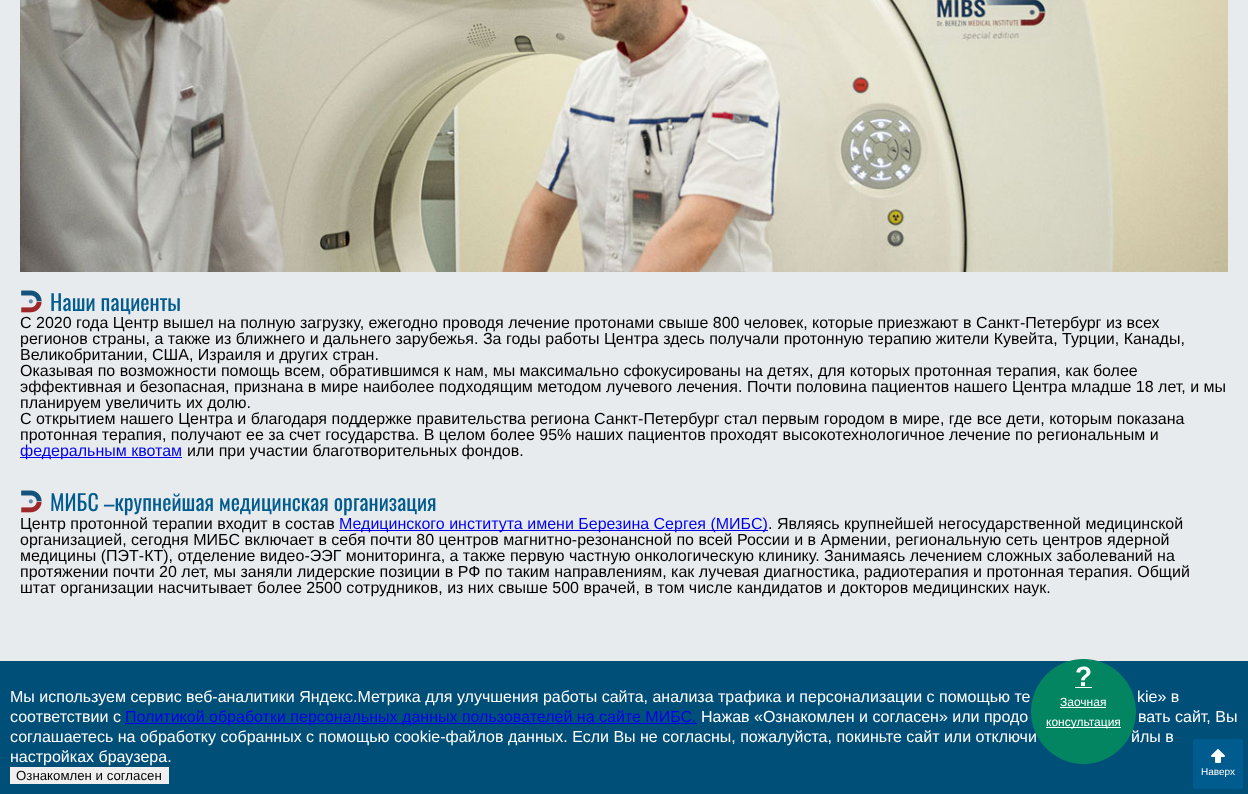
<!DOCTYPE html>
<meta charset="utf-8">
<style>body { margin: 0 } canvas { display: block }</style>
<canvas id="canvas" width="1248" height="794"></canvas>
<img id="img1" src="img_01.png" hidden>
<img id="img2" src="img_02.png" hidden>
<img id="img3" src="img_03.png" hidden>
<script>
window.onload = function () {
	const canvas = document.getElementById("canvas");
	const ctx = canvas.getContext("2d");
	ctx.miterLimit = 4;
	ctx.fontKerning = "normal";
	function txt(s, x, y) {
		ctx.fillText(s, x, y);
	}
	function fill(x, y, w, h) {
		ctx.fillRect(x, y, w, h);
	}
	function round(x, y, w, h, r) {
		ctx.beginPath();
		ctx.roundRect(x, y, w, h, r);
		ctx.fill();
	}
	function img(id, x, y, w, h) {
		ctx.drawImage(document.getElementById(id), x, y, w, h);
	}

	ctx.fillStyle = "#E8EBEE";
	fill(0, 0, 1248, 794);
	img("img1", 20, 0, 1208, 272);
	img("img2", 21, 290, 21, 23);
	ctx.fillStyle = "#0000EE";
	fill(20, 457, 162, 1);
	img("img2", 21, 490, 21, 23);
	fill(339, 530, 429, 1);
	ctx.fillStyle = "#004F79";
	fill(0, 661, 1248, 133);
	ctx.fillStyle = "#005C8E";
	round(1193, 739, 50, 50, 2);
	img("img3", 1211, 749, 14, 14);
	ctx.fillStyle = "#0000EE";
	fill(125, 723, 572, 1);
	ctx.fillStyle = "#EFEFEF";
	fill(10, 767, 159, 17);
	ctx.font = "22px Oswald";
	ctx.fillStyle = "#005C8E";
	txt("Наши пациенты", 50, 311);
	ctx.font = "16px Liberation Sans";
	ctx.fillStyle = "#000000";
	txt("С 2020 года Центр вышел на полную загрузку, ежегодно проводя лечение протонами свыше 800 человек, которые приезжают в Санкт-Петербург из всех", 20, 328);
	txt("регионов страны, а также из ближнего и дальнего зарубежья. За годы работы Центра здесь получали протонную терапию жители Кувейта, Турции, Канады,", 20, 344);
	txt("Великобритании, США, Израиля и других стран.", 20, 360);
	txt("Оказывая по возможности помощь всем, обратившимся к нам, мы максимально сфокусированы на детях, для которых протонная терапия, как более", 20, 376);
	txt("эффективная и безопасная, признана в мире наиболее подходящим методом лучевого лечения. Почти половина пациентов нашего Центра младше 18 лет, и мы", 20, 392);
	txt("планируем увеличить их долю.", 20, 408);
	txt("С открытием нашего Центра и благодаря поддержке правительства региона Санкт-Петербург стал первым городом в мире, где все дети, которым показана", 20, 424);
	txt("протонная терапия, получают ее за счет государства. В целом более 95% наших пациентов проходят высокотехнологичное лечение по региональным и", 20, 440);
	ctx.fillStyle = "#0000EE";
	txt("федеральным квотам", 20, 456);
	ctx.fillStyle = "#000000";
	txt("или при участии благотворительных фондов.", 187, 456);
	ctx.font = "22px Oswald";
	ctx.fillStyle = "#005C8E";
	txt("МИБС –крупнейшая медицинская организация", 50, 511);
	ctx.font = "16px Liberation Sans";
	ctx.fillStyle = "#000000";
	txt("Центр протонной терапии входит в состав", 20, 529);
	ctx.fillStyle = "#0000EE";
	txt("Медицинского института имени Березина Сергея (МИБС)", 339, 529);
	ctx.fillStyle = "#000000";
	txt(". Являясь крупнейшей негосударственной медицинской", 768, 529);
	txt("организацией, сегодня МИБС включает в себя почти 80 центров магнитно-резонансной по всей России и в Армении, региональную сеть центров ядерной", 20, 545);
	txt("медицины (ПЭТ-КТ), отделение видео-ЭЭГ мониторинга, а также первую частную онкологическую клинику. Занимаясь лечением сложных заболеваний на", 20, 561);
	txt("протяжении почти 20 лет, мы заняли лидерские позиции в РФ по таким направлениям, как лучевая диагностика, радиотерапия и протонная терапия. Общий", 20, 577);
	txt("штат организации насчитывает более 2500 сотрудников, из них свыше 500 врачей, в том числе кандидатов и докторов медицинских наук.", 20, 593);
	ctx.font = "10px Liberation Sans";
	ctx.fillStyle = "#FFFFFF";
	txt("Наверх", 1201, 775);
	ctx.font = "16px Liberation Sans";
	txt("Мы используем сервис веб-аналитики Яндекс.Метрика для улучшения работы сайта, анализа трафика и персонализации с помощью те", 10, 702);
	txt("kie» в", 1137, 702);
	txt("соответствии с", 10, 722);
	ctx.fillStyle = "#0000EE";
	txt("Политикой обработки персональных данных пользователей на сайте МИБС.", 125, 722);
	ctx.fillStyle = "#FFFFFF";
	txt("Нажав «Ознакомлен и согласен» или продо", 701, 722);
	txt("вать сайт, Вы", 1138, 722);
	txt("соглашаетесь на обработку собранных с помощью cookie-файлов данных. Если Вы не согласны, пожалуйста, покиньте сайт или отключи", 10, 742);
	txt("йлы в", 1131, 742);
	ctx.fillStyle = "#048561";
	ctx.beginPath();
	ctx.arc(1083.5, 711.5, 52.5, 0, Math.PI * 2);
	ctx.fill();
	ctx.fillStyle = "#FFFFFF";
	fill(1046, 727, 75, 1);
	ctx.font = "12px Liberation Sans";
	txt("консультация", 1046, 726);
	txt("Заочная", 1060, 706);
	fill(1060, 707, 46, 1);
	ctx.font = "bold 28px Liberation Sans";
	txt("?", 1075, 686);
	fill(1075, 687, 17, 1);
	ctx.font = "16px Liberation Sans";
	txt("настройках браузера.", 10, 762);
	ctx.font = "13.25px Liberation Sans";
	ctx.fillStyle = "#000000";
	txt("Ознакомлен и согласен", 16, 780);
};
</script>
